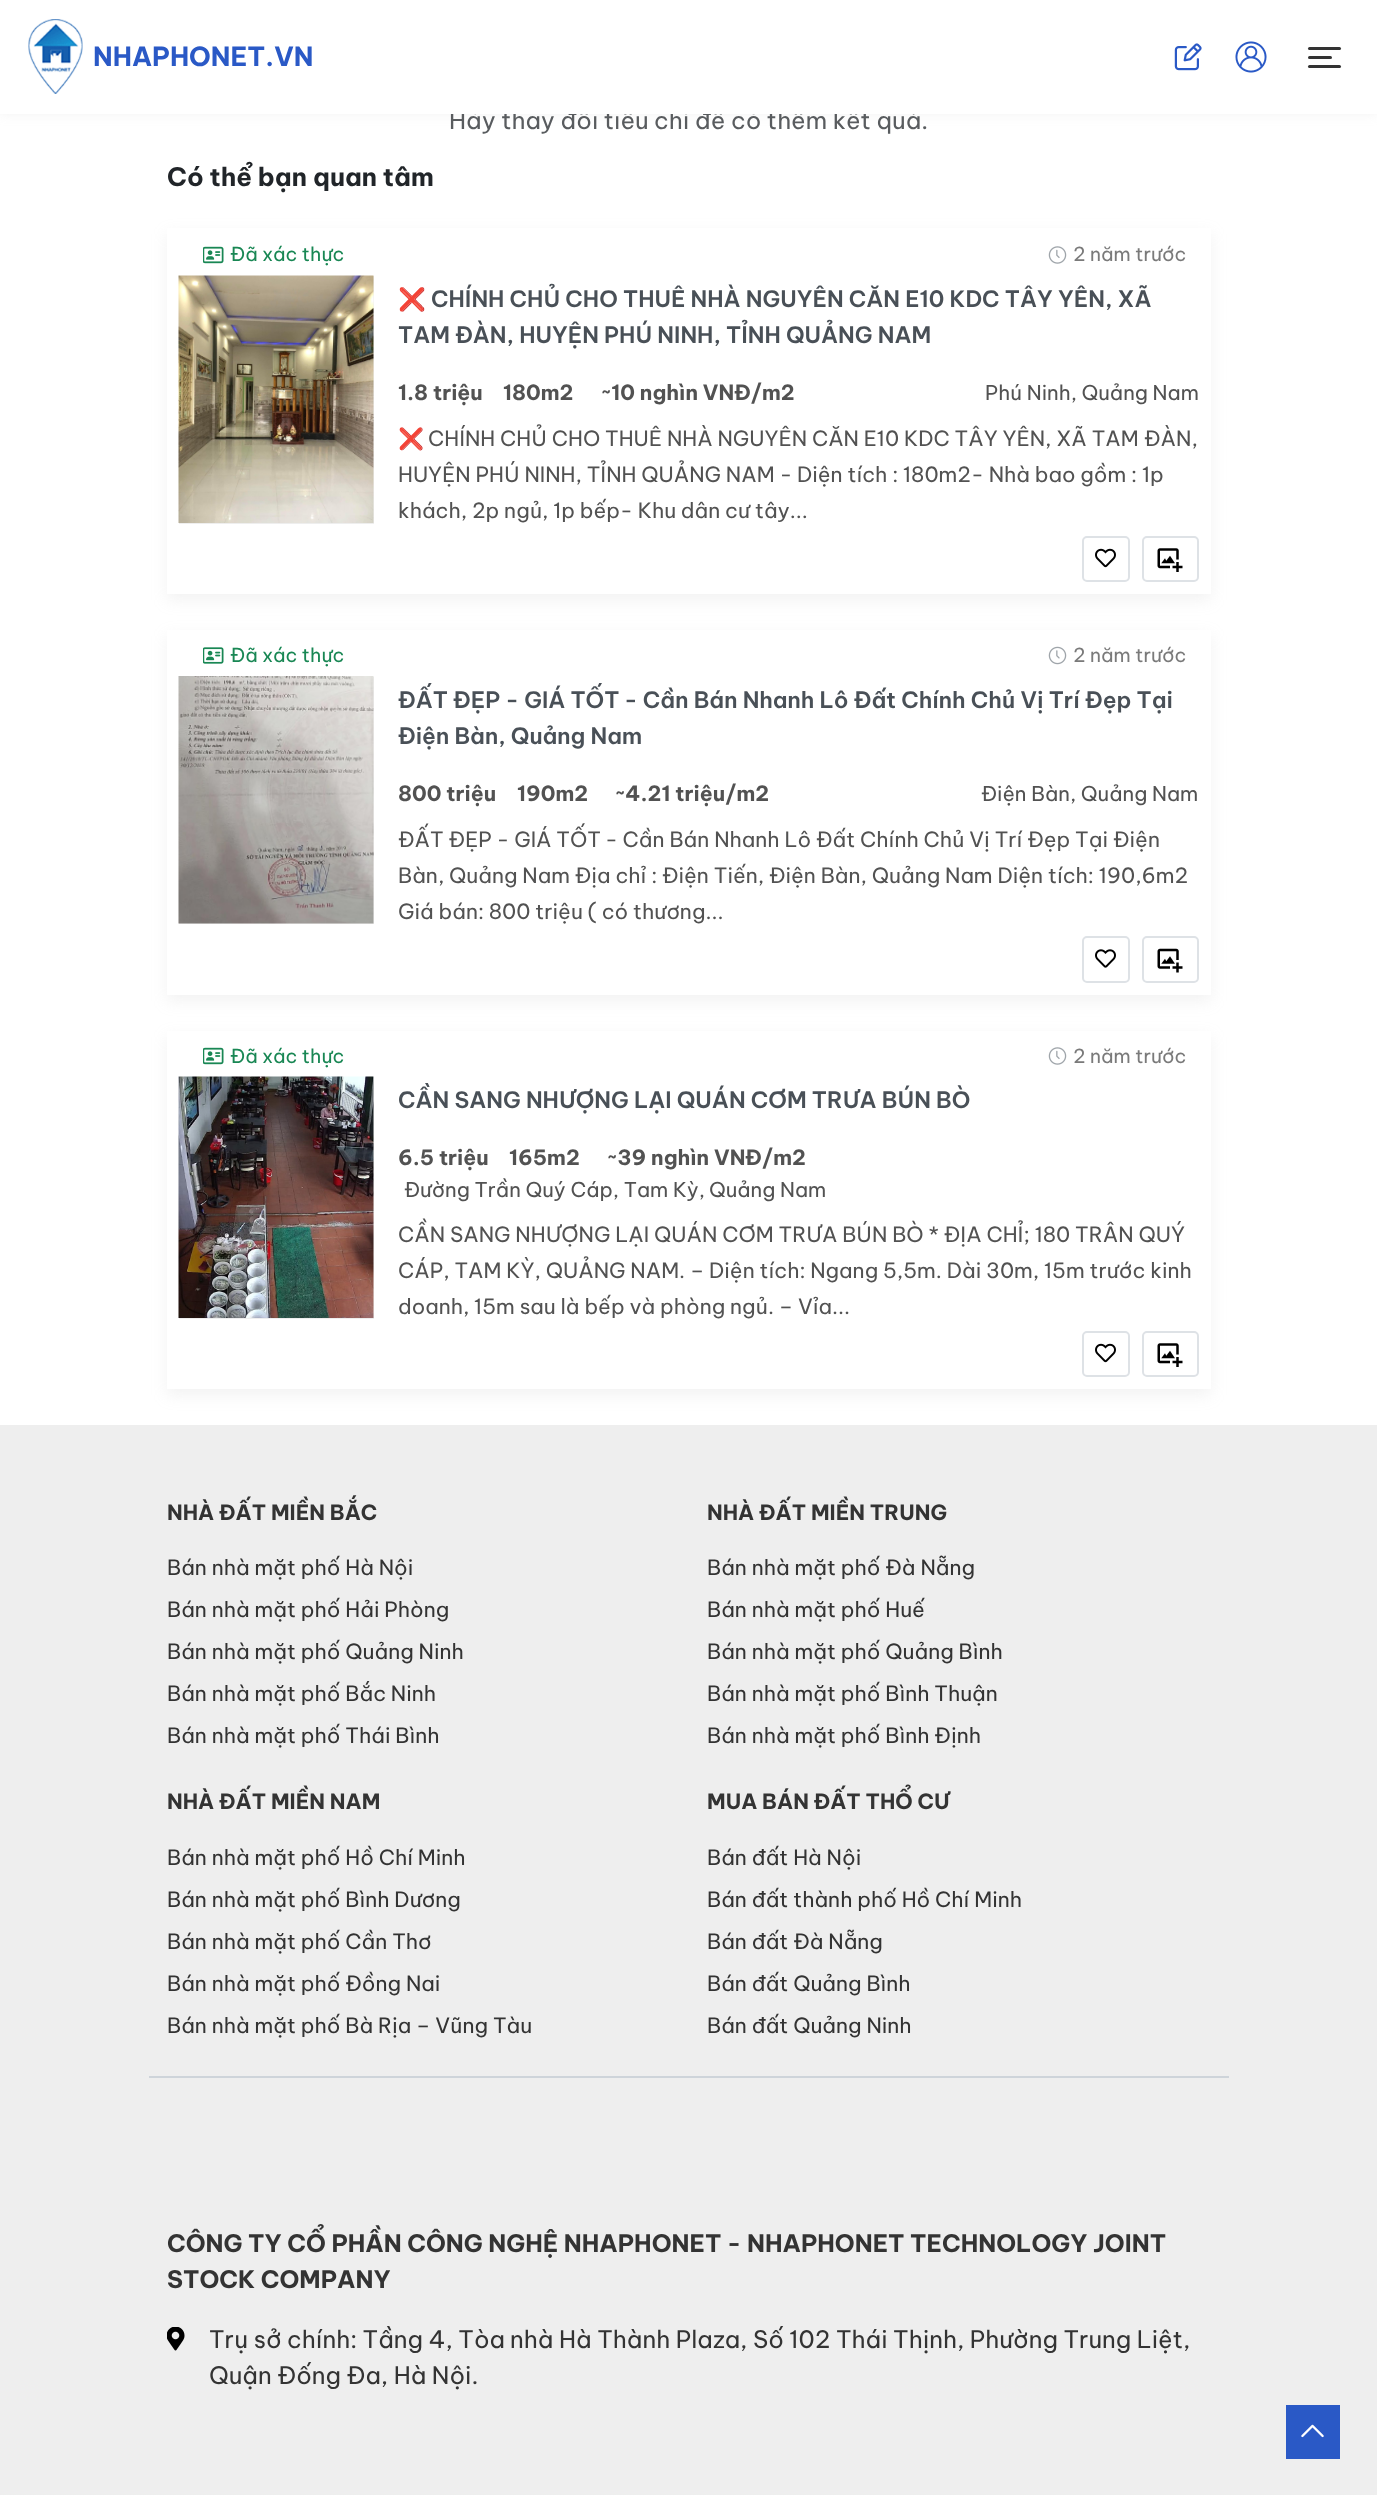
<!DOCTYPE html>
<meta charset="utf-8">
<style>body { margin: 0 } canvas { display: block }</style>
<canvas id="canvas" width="1377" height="2495"></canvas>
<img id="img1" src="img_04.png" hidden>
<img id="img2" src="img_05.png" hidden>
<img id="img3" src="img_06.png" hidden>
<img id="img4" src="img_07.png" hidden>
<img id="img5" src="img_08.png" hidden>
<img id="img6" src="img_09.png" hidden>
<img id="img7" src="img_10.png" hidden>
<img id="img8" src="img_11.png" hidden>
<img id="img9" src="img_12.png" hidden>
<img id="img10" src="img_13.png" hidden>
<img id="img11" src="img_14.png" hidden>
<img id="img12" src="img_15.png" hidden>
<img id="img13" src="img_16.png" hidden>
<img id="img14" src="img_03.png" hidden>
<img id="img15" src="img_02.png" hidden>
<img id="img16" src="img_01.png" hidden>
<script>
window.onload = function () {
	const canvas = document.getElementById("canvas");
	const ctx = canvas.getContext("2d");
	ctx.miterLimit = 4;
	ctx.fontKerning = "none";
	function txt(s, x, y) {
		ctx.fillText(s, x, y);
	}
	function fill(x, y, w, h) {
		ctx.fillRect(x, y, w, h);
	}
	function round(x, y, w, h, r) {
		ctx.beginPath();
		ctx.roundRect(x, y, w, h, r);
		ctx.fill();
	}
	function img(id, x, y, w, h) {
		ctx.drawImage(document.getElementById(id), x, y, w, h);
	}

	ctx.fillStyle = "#FFFFFF";
	fill(0, 0, 1377, 2495);
	ctx.fillStyle = "rgba(182, 182, 182, 0.18)";
	ctx.filter = "blur(6px)";
	ctx.beginPath();
	ctx.rect(0, 0, 1377, 114);
	ctx.fill();
	ctx.filter = "none";
	ctx.save();
	ctx.beginPath();
	ctx.moveTo(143, 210);
	ctx.lineTo(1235, 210);
	ctx.lineTo(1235, 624);
	ctx.lineTo(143, 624);
	ctx.closePath();
	ctx.moveTo(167, 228);
	ctx.lineTo(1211, 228);
	ctx.lineTo(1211, 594);
	ctx.lineTo(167, 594);
	ctx.closePath();
	ctx.clip("evenodd");
	ctx.filter = "blur(7.5px)";
	ctx.beginPath();
	ctx.rect(167, 234, 1044, 366);
	ctx.fill();
	ctx.filter = "none";
	ctx.restore();
	img("img1", 203, 246, 21, 18);
	img("img2", 1048, 246, 19, 18);
	ctx.fillStyle = "#EEEEEE";
	fill(179, 276, 195, 248);
	img("img3", 178, 275, 196, 248);
	ctx.beginPath();
	ctx.roundRect(1083, 537, 46, 44, 4);
	ctx.strokeStyle = "#DEE2E6";
	ctx.lineWidth = 2;
	ctx.stroke();
	img("img4", 1095, 548, 21, 20);
	ctx.beginPath();
	ctx.roundRect(1143, 537, 55, 44, 4);
	ctx.stroke();
	img("img5", 1157, 548, 26, 24);
	ctx.save();
	ctx.beginPath();
	ctx.moveTo(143, 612);
	ctx.lineTo(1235, 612);
	ctx.lineTo(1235, 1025);
	ctx.lineTo(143, 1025);
	ctx.closePath();
	ctx.moveTo(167, 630);
	ctx.lineTo(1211, 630);
	ctx.lineTo(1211, 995);
	ctx.lineTo(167, 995);
	ctx.closePath();
	ctx.clip("evenodd");
	ctx.fillStyle = "rgba(182, 182, 182, 0.18)";
	ctx.filter = "blur(7.5px)";
	ctx.beginPath();
	ctx.rect(167, 636, 1044, 365);
	ctx.fill();
	ctx.filter = "none";
	ctx.restore();
	img("img6", 203, 647, 21, 17);
	img("img7", 1048, 646, 19, 19);
	fill(179, 677, 195, 247);
	img("img8", 178, 676, 196, 248);
	ctx.beginPath();
	ctx.roundRect(1083, 937, 46, 45, 4);
	ctx.stroke();
	img("img9", 1095, 949, 21, 19);
	ctx.beginPath();
	ctx.roundRect(1143, 937, 55, 45, 4);
	ctx.stroke();
	img("img10", 1157, 948, 26, 25);
	ctx.save();
	ctx.beginPath();
	ctx.moveTo(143, 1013);
	ctx.lineTo(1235, 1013);
	ctx.lineTo(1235, 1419);
	ctx.lineTo(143, 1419);
	ctx.closePath();
	ctx.moveTo(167, 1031);
	ctx.lineTo(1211, 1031);
	ctx.lineTo(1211, 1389);
	ctx.lineTo(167, 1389);
	ctx.closePath();
	ctx.clip("evenodd");
	ctx.fillStyle = "rgba(182, 182, 182, 0.18)";
	ctx.filter = "blur(7.5px)";
	ctx.beginPath();
	ctx.rect(167, 1037, 1044, 358);
	ctx.fill();
	ctx.filter = "none";
	ctx.restore();
	img("img1", 203, 1047, 21, 18);
	img("img2", 1048, 1047, 19, 18);
	fill(179, 1077, 195, 242);
	img("img11", 178, 1076, 196, 242);
	ctx.beginPath();
	ctx.roundRect(1083, 1332, 46, 44, 4);
	ctx.stroke();
	img("img4", 1095, 1343, 21, 20);
	ctx.beginPath();
	ctx.roundRect(1143, 1332, 55, 44, 4);
	ctx.stroke();
	img("img5", 1157, 1343, 26, 24);
	fill(0, 1425, 1377, 1070);
	ctx.fillStyle = "#CED4DA";
	fill(149, 2076, 1080, 2);
	img("img12", 167, 2327, 18, 24);
	ctx.fillStyle = "#2A59C6";
	fill(1286, 2405, 54, 54);
	img("img13", 1301, 2424, 23, 14);
	ctx.font = "24px Be Vietnam Pro";
	ctx.fillStyle = "#595C5F";
	txt("Hãy thay đổi tiêu chí để có thêm kết quả.", 449, 129);
	ctx.fillStyle = "#FFFFFF";
	fill(0, 0, 1377, 114);
	ctx.fillStyle = "#333333";
	round(1308, 65, 33, 3, 1.5);
	round(1308, 56, 24, 3, 1.5);
	round(1308, 47, 33, 3, 1.5);
	img("img14", 1235, 41, 32, 32);
	img("img15", 1174, 43, 28, 28);
	ctx.font = "bold 26.25px Be Vietnam Pro";
	ctx.fillStyle = "#2A59C6";
	txt("NHAPHONET.VN", 93, 66);
	img("img16", 28, 19, 55, 75);
	ctx.font = "bold 25.5px Be Vietnam Pro";
	ctx.fillStyle = "#212529";
	txt("Có thể bạn quan tâm", 167, 186);
	ctx.font = "19.25px Be Vietnam Pro";
	ctx.fillStyle = "#198754";
	txt("Đã xác thực", 230, 261);
	ctx.fillStyle = "#7A7A7A";
	txt("2 năm trước", 1073, 261);
	ctx.save();
	ctx.beginPath();
	ctx.rect(398, 282, 801, 72);
	ctx.clip();
	ctx.font = "22.5px Noto Color Emoji";
	ctx.fillStyle = "#495057";
	txt("❌", 398, 307);
	ctx.restore();
	ctx.font = "600 22.5px Be Vietnam Pro";
	ctx.fillStyle = "#495057";
	txt("CHÍNH CHỦ CHO THUÊ NHÀ NGUYÊN CĂN E10 KDC TÂY", 431, 307);
	txt("YÊN, XÃ", 1058, 307);
	txt("TAM ĐÀN, HUYỆN PHÚ NINH, TỈNH QUẢNG NAM", 398, 343);
	ctx.font = "bold 21px Be Vietnam Pro";
	ctx.fillStyle = "#525252";
	txt("1.8 triệu", 398, 400);
	txt("180m2", 503, 400);
	txt("~10 nghìn VNĐ/m2", 601, 400);
	ctx.font = "20.4px Be Vietnam Pro";
	txt("Phú Ninh, Quảng Nam", 985, 400);
	ctx.save();
	ctx.beginPath();
	ctx.rect(398, 422, 801, 102);
	ctx.clip();
	ctx.font = "21px Noto Color Emoji";
	txt("❌", 398, 446);
	ctx.restore();
	ctx.font = "21px Be Vietnam Pro";
	txt("CHÍNH CHỦ CHO THUÊ NHÀ NGUYÊN CĂN E10 KDC TÂY YÊN, XÃ TAM", 428, 446);
	txt("ĐÀN,", 1144, 446);
	txt("HUYỆN PHÚ NINH, TỈNH QUẢNG NAM - Diện tích : 180m2- Nhà bao gồm : 1p", 398, 482);
	txt("khách, 2p ngủ, 1p bếp- Khu dân cư tây...", 398, 518);
	ctx.font = "19.25px Be Vietnam Pro";
	ctx.fillStyle = "#198754";
	txt("Đã xác thực", 230, 662);
	ctx.fillStyle = "#7A7A7A";
	txt("2 năm trước", 1073, 662);
	ctx.save();
	ctx.beginPath();
	ctx.rect(398, 683, 801, 72);
	ctx.clip();
	ctx.font = "600 22.5px Be Vietnam Pro";
	ctx.fillStyle = "#495057";
	txt("ĐẤT ĐẸP - GIÁ TỐT", 398, 708);
	txt("- Cần Bán Nhanh Lô Đất Chính Chủ Vị Trí Đẹp Tại", 624, 708);
	ctx.restore();
	ctx.font = "600 22.5px Be Vietnam Pro";
	ctx.fillStyle = "#495057";
	txt("Điện Bàn, Quảng Nam", 398, 744);
	ctx.font = "bold 21px Be Vietnam Pro";
	ctx.fillStyle = "#525252";
	txt("800 triệu", 398, 801);
	txt("190m2", 517, 801);
	txt("~4.21 triệu/m2", 615, 801);
	ctx.font = "20.4px Be Vietnam Pro";
	txt("Điện Bàn, Quảng Nam", 981, 801);
	ctx.font = "21px Be Vietnam Pro";
	txt("ĐẤT ĐẸP - GIÁ TỐT", 398, 847);
	txt("- Cần Bán Nhanh Lô Đất Chính Chủ Vị Trí Đẹp Tại", 605, 847);
	txt("Điện", 1113, 847);
	txt("Bàn, Quảng Nam Địa chỉ : Điện Tiến, Điện Bàn, Quảng Nam Diện tích: 190,6m2", 398, 883);
	txt("Giá bán: 800 triệu ( có thương...", 398, 919);
	ctx.font = "19.25px Be Vietnam Pro";
	ctx.fillStyle = "#198754";
	txt("Đã xác thực", 230, 1063);
	ctx.fillStyle = "#7A7A7A";
	txt("2 năm trước", 1073, 1063);
	ctx.save();
	ctx.beginPath();
	ctx.rect(398, 1083, 801, 36);
	ctx.clip();
	ctx.font = "600 22.5px Be Vietnam Pro";
	ctx.fillStyle = "#495057";
	txt("CẦN SANG NHƯỢNG LẠI QUÁN CƠM TRƯA BÚN BÒ", 398, 1108);
	ctx.restore();
	ctx.font = "bold 21px Be Vietnam Pro";
	ctx.fillStyle = "#525252";
	txt("6.5 triệu", 398, 1165);
	txt("165m2", 509, 1165);
	txt("~39 nghìn VNĐ/m2", 607, 1165);
	ctx.font = "20.4px Be Vietnam Pro";
	txt("Đường Trần Quý Cáp, Tam Kỳ,", 404, 1197);
	txt("Quảng Nam", 709, 1197);
	ctx.font = "21px Be Vietnam Pro";
	txt("CẦN SANG NHƯỢNG LẠI QUÁN CƠM TRƯA BÚN BÒ * ĐỊA CHỈ; 180 TRÂN QUÝ", 398, 1242);
	txt("CÁP, TAM KỲ, QUẢNG NAM. – Diện tích: Ngang 5,5m. Dài 30m, 15m trước kinh", 398, 1278);
	txt("doanh, 15m sau là bếp và phòng ngủ. – Vỉa...", 398, 1314);
	ctx.font = "bold 21px Be Vietnam Pro";
	ctx.fillStyle = "#333333";
	txt("NHÀ ĐẤT MIỀN BẮC", 167, 1520);
	ctx.font = "21px Be Vietnam Pro";
	txt("Bán nhà mặt phố Hà Nội", 167, 1575);
	txt("Bán nhà mặt phố Hải Phòng", 167, 1617);
	txt("Bán nhà mặt phố Quảng Ninh", 167, 1659);
	txt("Bán nhà mặt phố Bắc Ninh", 167, 1701);
	txt("Bán nhà mặt phố Thái Bình", 167, 1743);
	ctx.font = "bold 21px Be Vietnam Pro";
	txt("NHÀ ĐẤT MIỀN TRUNG", 707, 1520);
	ctx.font = "21px Be Vietnam Pro";
	txt("Bán nhà mặt phố Đà Nẵng", 707, 1575);
	txt("Bán nhà mặt phố Huế", 707, 1617);
	txt("Bán nhà mặt phố Quảng Bình", 707, 1659);
	txt("Bán nhà mặt phố Bình Thuận", 707, 1701);
	txt("Bán nhà mặt phố Bình Định", 707, 1743);
	ctx.font = "bold 21px Be Vietnam Pro";
	txt("NHÀ ĐẤT MIỀN NAM", 167, 1809);
	ctx.font = "21px Be Vietnam Pro";
	txt("Bán nhà mặt phố Hồ Chí Minh", 167, 1865);
	txt("Bán nhà mặt phố Bình Dương", 167, 1907);
	txt("Bán nhà mặt phố Cần Thơ", 167, 1949);
	txt("Bán nhà mặt phố Đồng Nai", 167, 1991);
	txt("Bán nhà mặt phố Bà Rịa – Vũng Tàu", 167, 2033);
	ctx.font = "bold 21px Be Vietnam Pro";
	txt("MUA BÁN ĐẤT THỔ CƯ", 707, 1809);
	ctx.font = "21px Be Vietnam Pro";
	txt("Bán đất Hà Nội", 707, 1865);
	txt("Bán đất thành phố Hồ Chí Minh", 707, 1907);
	txt("Bán đất Đà Nẵng", 707, 1949);
	txt("Bán đất Quảng Bình", 707, 1991);
	txt("Bán đất Quảng Ninh", 707, 2033);
	ctx.font = "bold 24px Be Vietnam Pro";
	txt("CÔNG TY CỔ PHẦN CÔNG NGHỆ NHAPHONET - NHAPHONET TECHNOLOGY JOINT", 167, 2252);
	txt("STOCK COMPANY", 167, 2288);
	ctx.font = "24px Be Vietnam Pro";
	txt("Trụ sở chính: Tầng 4, Tòa", 209, 2348);
	txt("nhà Hà Thành Plaza, Số 102 Thái Thịnh, Phường Trung Liệt,", 510, 2348);
	txt("Quận Đống Đa, Hà Nội.", 209, 2384);
};
</script>
